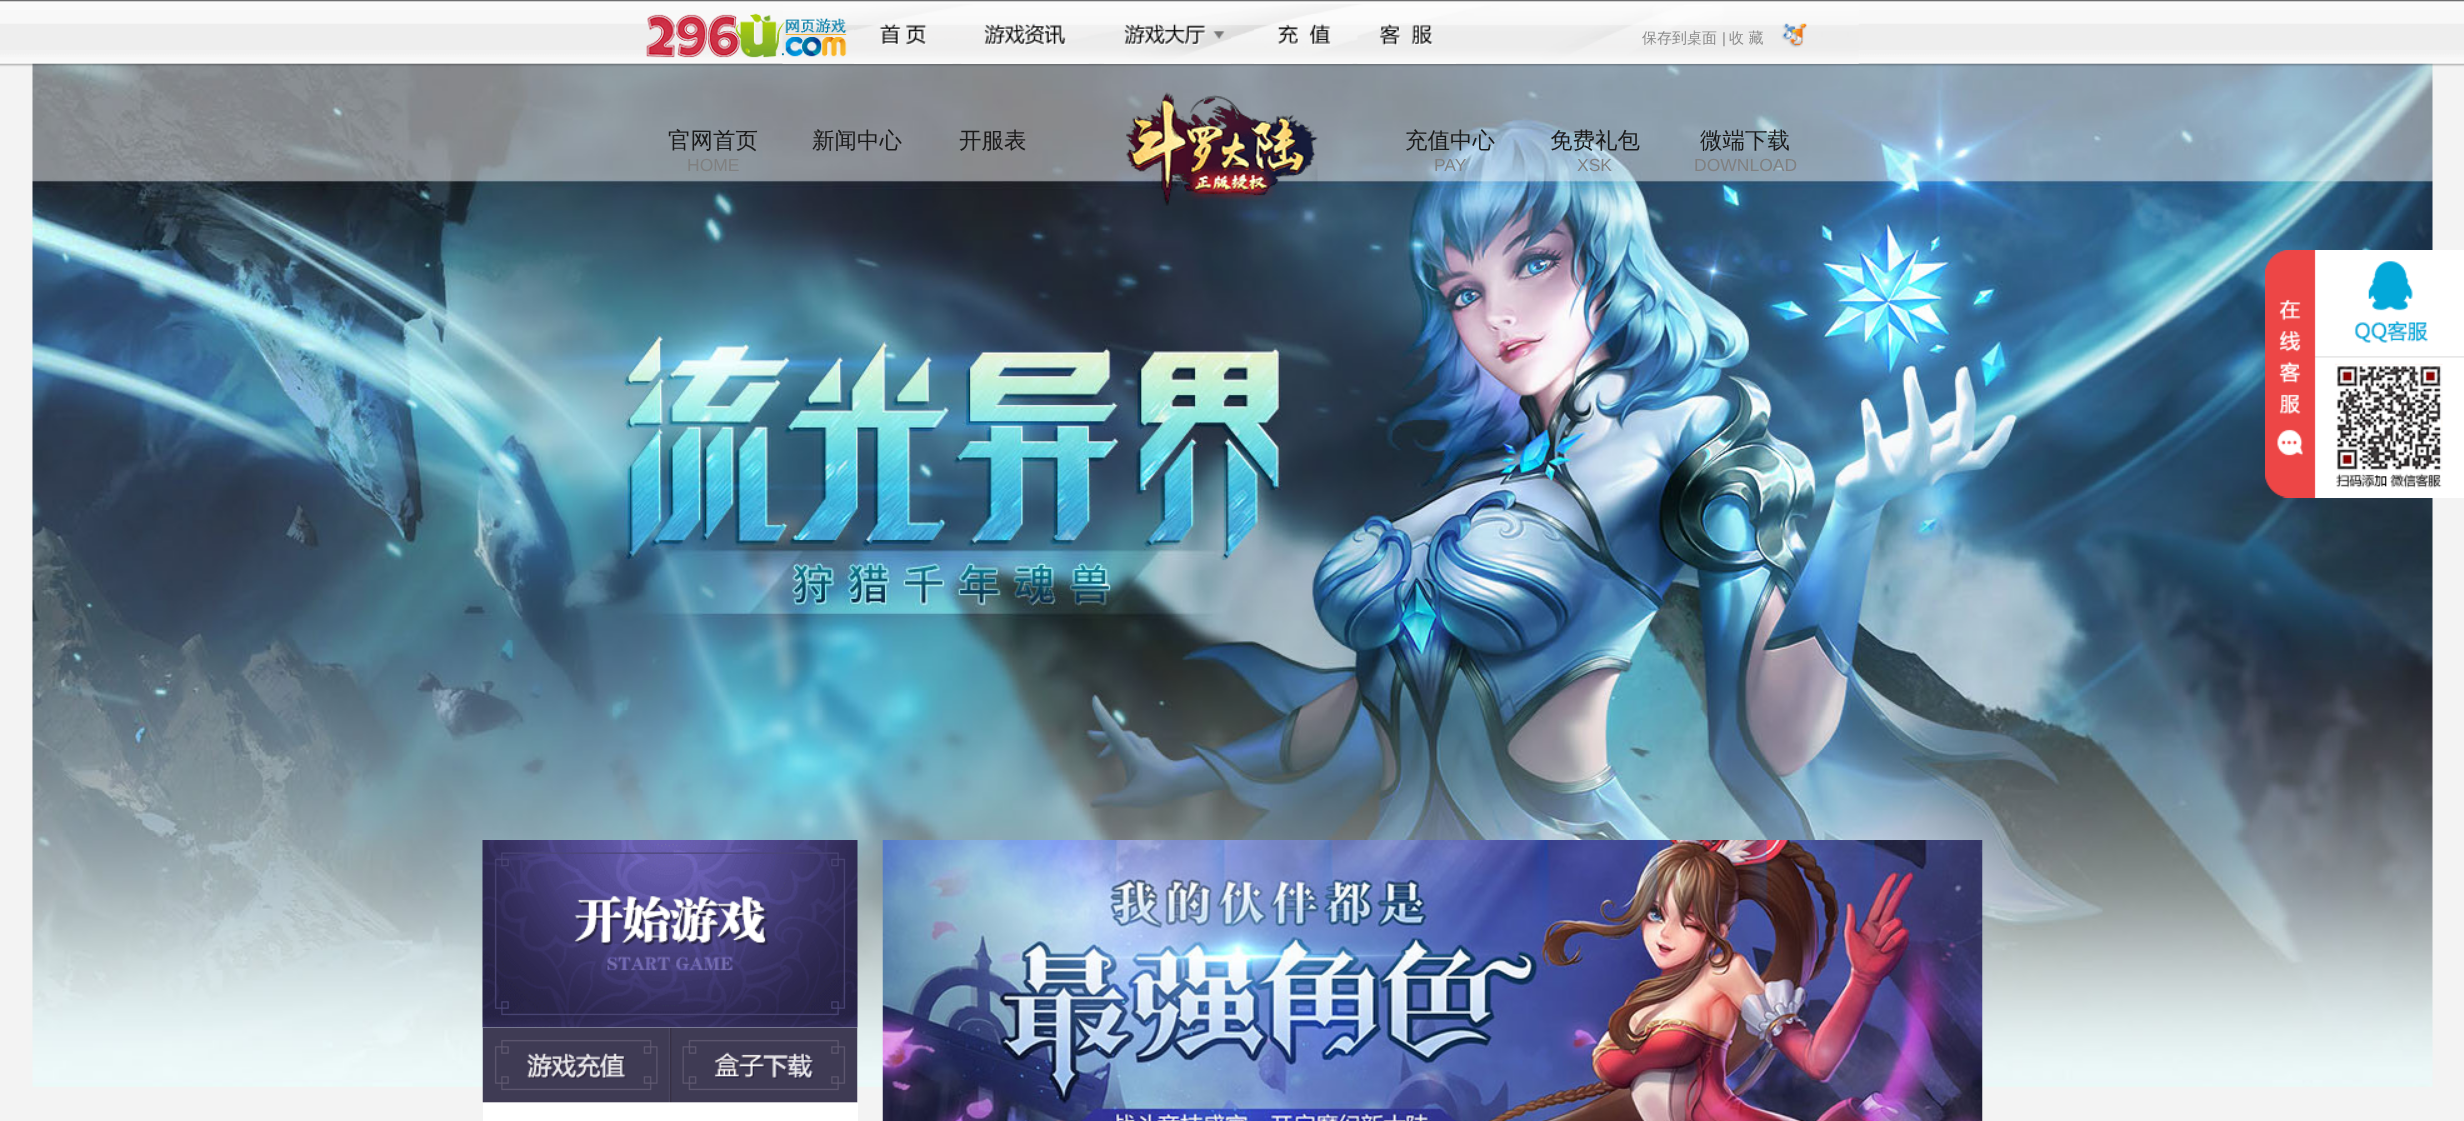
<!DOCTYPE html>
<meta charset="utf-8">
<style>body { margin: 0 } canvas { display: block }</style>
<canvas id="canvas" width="2464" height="1121"></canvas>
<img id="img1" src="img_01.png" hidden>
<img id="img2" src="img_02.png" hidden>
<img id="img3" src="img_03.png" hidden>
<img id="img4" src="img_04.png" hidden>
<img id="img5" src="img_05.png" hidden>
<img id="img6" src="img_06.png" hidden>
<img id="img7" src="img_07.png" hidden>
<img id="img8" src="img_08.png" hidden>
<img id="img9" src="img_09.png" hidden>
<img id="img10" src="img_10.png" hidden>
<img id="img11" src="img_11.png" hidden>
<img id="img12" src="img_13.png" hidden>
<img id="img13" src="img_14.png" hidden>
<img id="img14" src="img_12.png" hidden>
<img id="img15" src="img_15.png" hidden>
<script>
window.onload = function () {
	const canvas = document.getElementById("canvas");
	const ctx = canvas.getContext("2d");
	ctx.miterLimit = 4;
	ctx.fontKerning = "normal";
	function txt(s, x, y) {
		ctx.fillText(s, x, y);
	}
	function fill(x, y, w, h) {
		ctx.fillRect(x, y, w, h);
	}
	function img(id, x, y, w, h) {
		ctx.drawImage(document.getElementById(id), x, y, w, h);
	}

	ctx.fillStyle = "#F3F3F3";
	fill(0, 0, 2464, 1121);
	img("img1", 32, 63, 2401, 1024);
	img("img2", 0, 0, 2464, 67);
	img("img3", 782, 4, 1077, 60);
	img("img4", 646, 13, 201, 45);
	img("img5", 854, 23, 99, 41);
	img("img6", 961, 23, 128, 41);
	img("img7", 1104, 23, 127, 41);
	img("img8", 1254, 14, 99, 50);
	img("img9", 1357, 23, 99, 41);
	img("img10", 1126, 92, 192, 114);
	img("img11", 2265, 250, 199, 248);
	img("img12", 482, 1027, 188, 76);
	img("img13", 670, 1027, 188, 76);
	img("img14", 482, 840, 376, 188);
	ctx.fillStyle = "#FFFFFF";
	fill(483, 1103, 375, 18);
	img("img15", 882, 840, 1101, 281);
	ctx.font = "500 15px WenQuanYi Zen Hei";
	ctx.fillStyle = "#8B8B8B";
	txt("保存到桌面", 1642, 43);
	ctx.font = "15px Liberation Sans";
	txt("|", 1722, 43);
	ctx.font = "500 15px WenQuanYi Zen Hei";
	txt("收 藏", 1729, 43);
	ctx.font = "500 22.5px WenQuanYi Zen Hei";
	ctx.fillStyle = "#1A1A1A";
	txt("官网首页", 668, 148);
	ctx.font = "17.5px Liberation Sans";
	ctx.fillStyle = "#808080";
	txt("HOME", 687, 171);
	ctx.font = "500 22.5px WenQuanYi Zen Hei";
	ctx.fillStyle = "#1A1A1A";
	txt("新闻中心", 812, 148);
	txt("开服表", 959, 148);
	txt("充值中心", 1405, 148);
	ctx.font = "17.5px Liberation Sans";
	ctx.fillStyle = "#808080";
	txt("PAY", 1434, 171);
	ctx.font = "500 22.5px WenQuanYi Zen Hei";
	ctx.fillStyle = "#1A1A1A";
	txt("免费礼包", 1550, 148);
	ctx.font = "17.5px Liberation Sans";
	ctx.fillStyle = "#808080";
	txt("XSK", 1577, 171);
	ctx.font = "500 22.5px WenQuanYi Zen Hei";
	ctx.fillStyle = "#1A1A1A";
	txt("微端下载", 1700, 148);
	ctx.font = "17.5px Liberation Sans";
	ctx.fillStyle = "#808080";
	txt("DOWNLOAD", 1694, 171);
};
</script>
